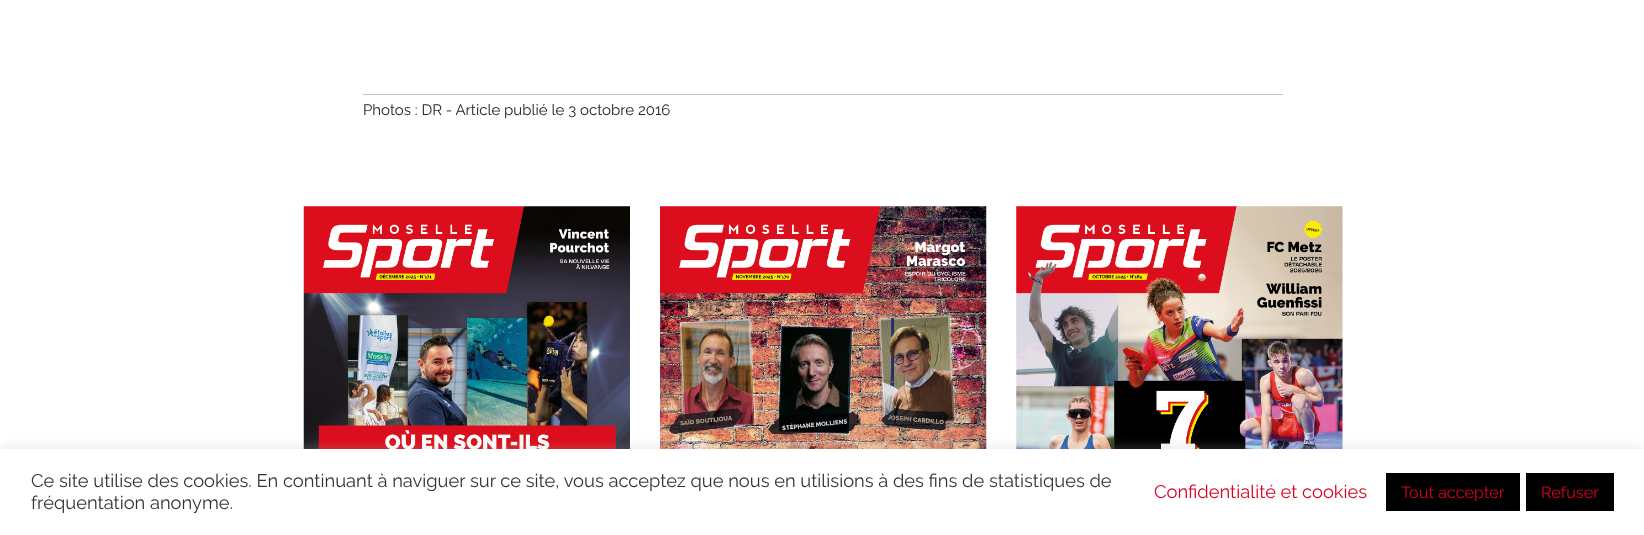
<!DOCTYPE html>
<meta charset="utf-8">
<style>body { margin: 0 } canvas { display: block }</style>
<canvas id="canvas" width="1644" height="535"></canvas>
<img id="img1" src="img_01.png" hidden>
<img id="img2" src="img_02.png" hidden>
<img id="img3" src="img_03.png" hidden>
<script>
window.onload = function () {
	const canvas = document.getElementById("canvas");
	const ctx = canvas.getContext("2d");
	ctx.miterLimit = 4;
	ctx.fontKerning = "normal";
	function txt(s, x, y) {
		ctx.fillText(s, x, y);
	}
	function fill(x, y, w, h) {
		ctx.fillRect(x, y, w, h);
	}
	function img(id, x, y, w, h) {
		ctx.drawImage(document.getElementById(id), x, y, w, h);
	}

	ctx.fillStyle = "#FFFFFF";
	fill(0, 0, 1644, 535);
	ctx.fillStyle = "#C4C4C4";
	fill(363, 94, 920, 1);
	img("img1", 303, 206, 327, 243);
	img("img2", 660, 206, 327, 243);
	img("img3", 1016, 206, 327, 243);
	ctx.fillStyle = "rgba(172, 171, 171, 0.3)";
	ctx.filter = "blur(6px)";
	ctx.beginPath();
	ctx.rect(0, 448, 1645, 86);
	ctx.fill();
	ctx.filter = "none";
	ctx.fillStyle = "#FFFFFF";
	fill(0, 449, 1644, 86);
	ctx.fillStyle = "#000000";
	fill(1386, 473, 134, 38);
	fill(1526, 473, 88, 38);
	ctx.font = "15px Raleway";
	ctx.fillStyle = "#212529";
	txt("Photos : DR - Article publié le 3 octobre 2016", 363, 115);
	ctx.font = "18.33px Raleway";
	ctx.fillStyle = "#333333";
	txt("Ce site utilise des cookies. En continuant à naviguer sur ce site, vous acceptez que nous en utilisions à des fins de statistiques de", 31, 487);
	txt("fréquentation anonyme.", 31, 509);
	ctx.fillStyle = "#DB0221";
	txt("Confidentialité et cookies", 1154, 498);
	ctx.font = "16.25px Raleway";
	txt("Tout accepter", 1401, 498);
	txt("Refuser", 1541, 498);
};
</script>
